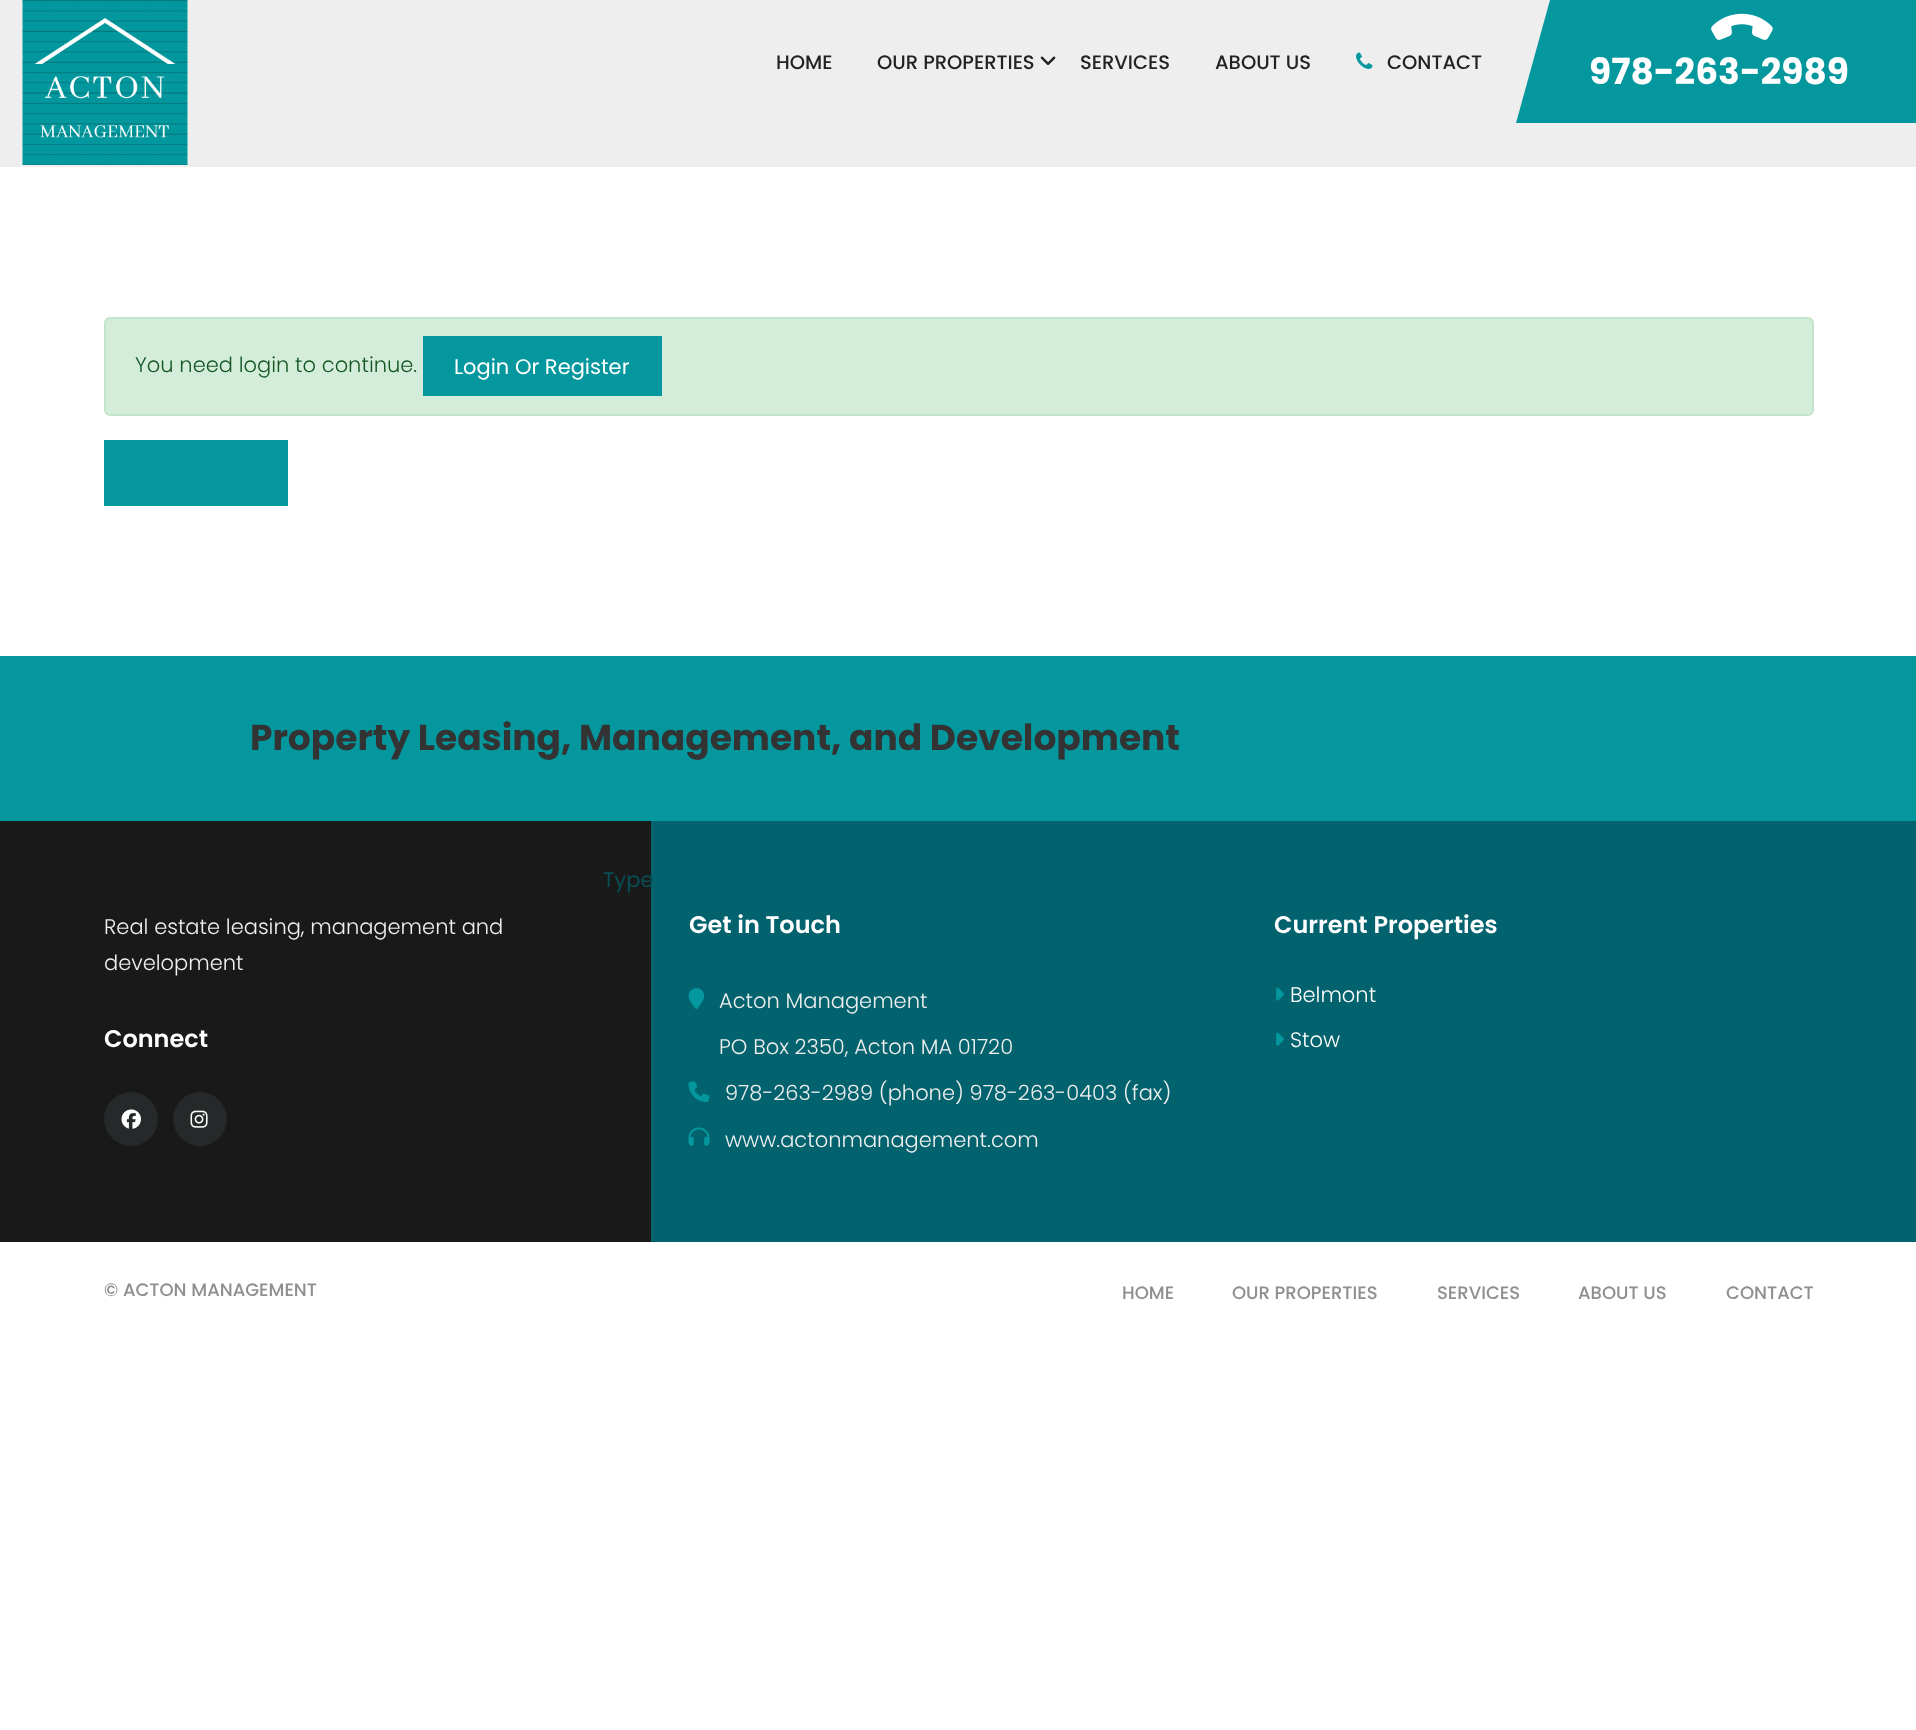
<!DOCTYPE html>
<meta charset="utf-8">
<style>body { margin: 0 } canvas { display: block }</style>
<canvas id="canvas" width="1916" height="1730"></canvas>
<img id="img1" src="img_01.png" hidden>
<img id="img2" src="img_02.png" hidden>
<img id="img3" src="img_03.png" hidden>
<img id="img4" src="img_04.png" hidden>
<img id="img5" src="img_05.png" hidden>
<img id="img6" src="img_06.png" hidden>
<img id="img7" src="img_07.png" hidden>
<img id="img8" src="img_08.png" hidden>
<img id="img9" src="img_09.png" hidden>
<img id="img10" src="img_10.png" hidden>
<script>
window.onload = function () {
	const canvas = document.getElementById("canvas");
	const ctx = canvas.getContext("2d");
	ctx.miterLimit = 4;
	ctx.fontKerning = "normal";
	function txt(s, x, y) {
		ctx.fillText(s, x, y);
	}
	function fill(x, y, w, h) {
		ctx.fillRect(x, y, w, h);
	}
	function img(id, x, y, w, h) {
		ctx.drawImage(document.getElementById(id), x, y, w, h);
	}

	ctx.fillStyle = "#FFFFFF";
	fill(0, 0, 1916, 1730);
	ctx.fillStyle = "#EEEEEE";
	fill(0, 0, 1916, 167);
	img("img1", 22, 0, 166, 165);
	img("img2", 1040, 56, 16, 9);
	img("img3", 1356, 52, 17, 17);
	ctx.fillStyle = "#04989E";
	fill(1550, 0, 366, 123);
	ctx.beginPath();
	ctx.moveTo(1550, 123);
	ctx.lineTo(1516, 123);
	ctx.lineTo(1550, 0);
	ctx.closePath();
	ctx.fill();
	img("img4", 1711, 13, 62, 27);
	ctx.fillStyle = "#D4EDDA";
	ctx.beginPath();
	ctx.roundRect(105, 318, 1708, 97, 5);
	ctx.fill();
	ctx.strokeStyle = "#C3E6CB";
	ctx.lineWidth = 2;
	ctx.stroke();
	ctx.fillStyle = "#04989E";
	fill(423, 336, 239, 60);
	fill(104, 440, 184, 66);
	ctx.fillStyle = "#02626D";
	fill(651, 821, 1265, 421);
	ctx.fillStyle = "#04989E";
	fill(0, 656, 1916, 165);
	ctx.fillStyle = "#191919";
	fill(0, 821, 651, 421);
	ctx.fillStyle = "#26292A";
	ctx.beginPath();
	ctx.arc(131, 1119, 27, 0, Math.PI * 2);
	ctx.fill();
	img("img5", 121, 1109, 20, 20);
	ctx.beginPath();
	ctx.arc(200, 1119, 27, 0, Math.PI * 2);
	ctx.fill();
	img("img6", 190, 1110, 18, 18);
	img("img7", 688, 988, 17, 21);
	img("img8", 688, 1081, 22, 22);
	img("img9", 688, 1127, 22, 19);
	img("img10", 1276, 987, 8, 14);
	img("img10", 1276, 1032, 8, 14);
	ctx.font = "500 19.5px Poppins";
	ctx.fillStyle = "#222222";
	txt("HOME", 776, 69);
	txt("OUR PROPERTIES", 877, 69);
	txt("SERVICES", 1080, 69);
	txt("ABOUT US", 1215, 69);
	txt("CONTACT", 1387, 69);
	ctx.font = "bold 36px Poppins";
	ctx.fillStyle = "#FFFFFF";
	txt("978-263-2989", 1589, 84);
	ctx.font = "300 21px Poppins";
	ctx.fillStyle = "#155724";
	txt("You need login to continue.", 135, 372);
	ctx.font = "21px Poppins";
	ctx.fillStyle = "#FFFFFF";
	txt("Login Or Register", 454, 374);
	ctx.font = "bold 36px Poppins";
	ctx.fillStyle = "#333333";
	txt("Property Leasing, Management, and Development", 250, 750);
	ctx.font = "300 21px Poppins";
	ctx.fillStyle = "#EFEFEF";
	txt("Real estate leasing, management and", 104, 934);
	txt("development", 104, 970);
	ctx.font = "600 24px Poppins";
	ctx.fillStyle = "#FFFFFF";
	txt("Connect", 104, 1047);
	txt("Get in Touch", 689, 933);
	ctx.font = "300 21px Poppins";
	ctx.fillStyle = "#EFEFEF";
	txt("Acton Management", 719, 1008);
	txt("PO Box 2350, Acton MA 01720", 719, 1054);
	txt("978-263-2989 (phone) 978-263-0403 (fax)", 725, 1100);
	txt("www.actonmanagement.com", 725, 1147);
	ctx.font = "600 24px Poppins";
	ctx.fillStyle = "#FFFFFF";
	txt("Current Properties", 1274, 933);
	ctx.font = "300 21px Poppins";
	txt("Belmont", 1290, 1002);
	txt("Stow", 1290, 1047);
	ctx.font = "500 18px Poppins";
	ctx.fillStyle = "#8F8F8F";
	txt("© ACTON MANAGEMENT", 104, 1296);
	txt("HOME", 1122, 1299);
	txt("OUR PROPERTIES", 1232, 1299);
	txt("SERVICES", 1437, 1299);
	txt("ABOUT US", 1578, 1299);
	txt("CONTACT", 1726, 1299);
	ctx.font = "21px Poppins";
	ctx.fillStyle = "#084E55";
	txt("Type", 603, 887);
};
</script>
